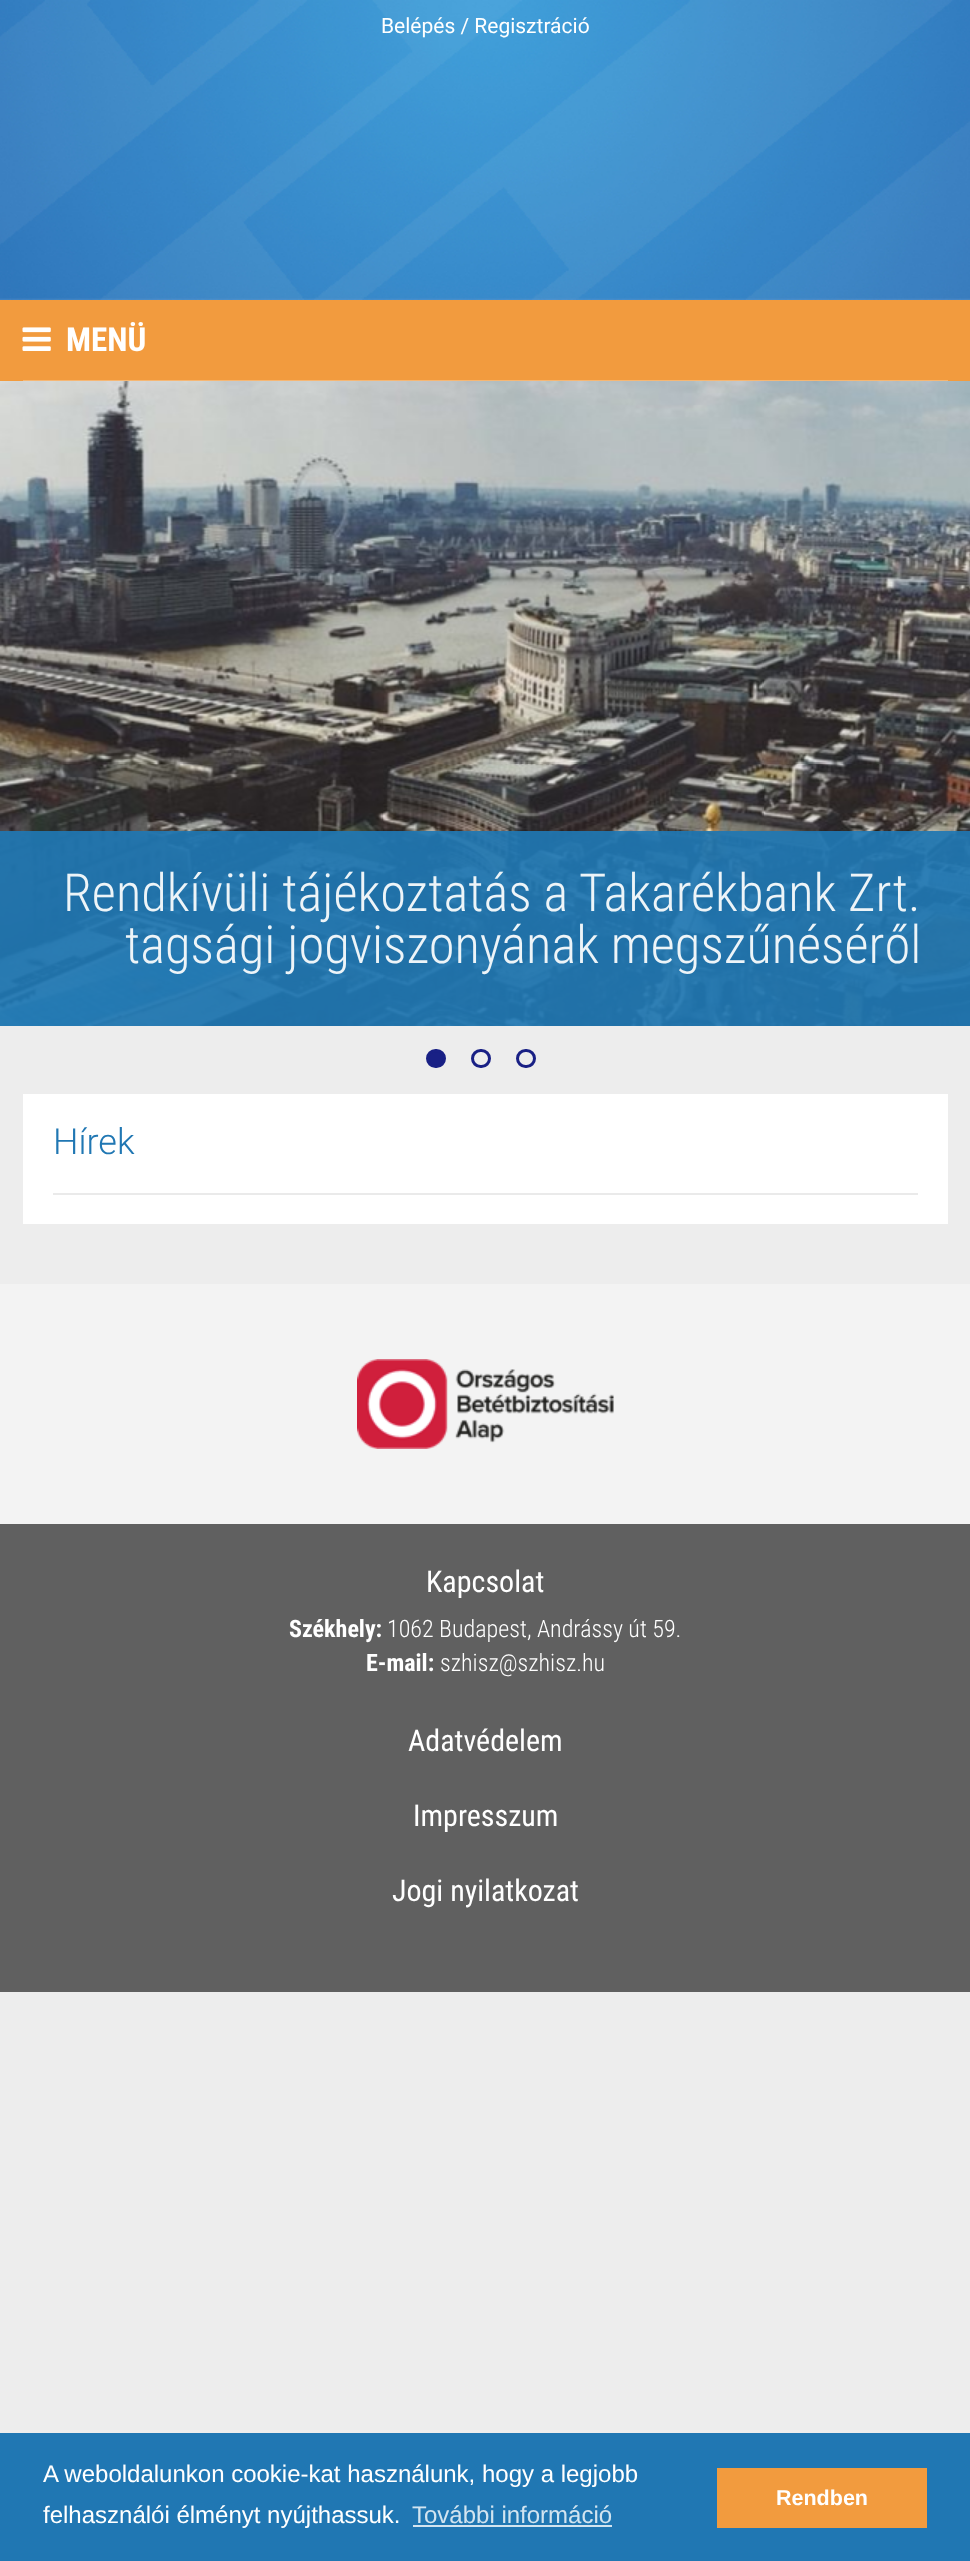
<!DOCTYPE html>
<meta charset="utf-8">
<style>body { margin: 0 } canvas { display: block }</style>
<canvas id="canvas" width="970" height="2561"></canvas>
<img id="img1" src="img_01.png" hidden>
<img id="img2" src="img_02.png" hidden>
<img id="img3" src="img_03.png" hidden>
<img id="img4" src="img_04.png" hidden>
<script>
window.onload = function () {
	const canvas = document.getElementById("canvas");
	const ctx = canvas.getContext("2d");
	ctx.miterLimit = 4;
	ctx.fontKerning = "normal";
	function txt(s, x, y) {
		ctx.fillText(s, x, y);
	}
	function fill(x, y, w, h) {
		ctx.fillRect(x, y, w, h);
	}
	function img(id, x, y, w, h) {
		ctx.drawImage(document.getElementById(id), x, y, w, h);
	}

	ctx.fillStyle = "#EDEDED";
	fill(0, 0, 970, 2561);
	img("img1", 0, 0, 970, 300);
	ctx.fillStyle = "#F29B3E";
	fill(0, 300, 970, 81);
	ctx.fillStyle = "#F6B774";
	fill(23, 380, 925, 1);
	img("img2", 22, 327, 29, 24);
	img("img3", 0, 381, 970, 645);
	ctx.fillStyle = "rgba(32, 119, 179, 0.92)";
	fill(0, 831, 970, 195);
	ctx.fillStyle = "#192085";
	ctx.beginPath();
	ctx.roundRect(427.5, 1050.5, 17, 16, 8);
	ctx.fill();
	ctx.strokeStyle = "#192085";
	ctx.lineWidth = 3;
	ctx.stroke();
	ctx.beginPath();
	ctx.roundRect(472.5, 1050.5, 17, 16, 8);
	ctx.stroke();
	ctx.beginPath();
	ctx.roundRect(517.5, 1050.5, 17, 16, 8);
	ctx.stroke();
	ctx.fillStyle = "#FFFFFF";
	fill(23, 1094, 925, 130);
	ctx.fillStyle = "#EAEAEA";
	fill(53, 1193, 865, 2);
	ctx.fillStyle = "#F3F3F3";
	fill(0, 1284, 970, 240);
	img("img4", 357, 1359, 257, 90);
	ctx.fillStyle = "#606060";
	fill(0, 1524, 970, 468);
	ctx.fillStyle = "#2077B3";
	fill(0, 2433, 970, 128);
	ctx.fillStyle = "#D2E4F0";
	fill(413, 2525, 199, 2);
	ctx.fillStyle = "#F29B3E";
	fill(717, 2468, 210, 60);
	ctx.font = "21px Roboto";
	ctx.fillStyle = "#FFFFFF";
	txt("Belépés / Regisztráció", 381, 33);
	ctx.font = "bold 33px Roboto Condensed";
	txt("MENÜ", 66, 351);
	ctx.font = "300 52.5px Roboto Condensed";
	ctx.fillStyle = "#EDF4F8";
	txt("Rendkívüli tájékoztatás a Takarékbank Zrt.", 63, 911);
	txt("tagsági jogviszonyának megszűnéséről", 125, 963);
	ctx.font = "300 36px Roboto";
	ctx.fillStyle = "#2077B3";
	txt("Hírek", 53, 1154);
	ctx.font = "30px Roboto Condensed";
	ctx.fillStyle = "#FFFFFF";
	txt("Kapcsolat", 426, 1592);
	ctx.font = "bold 24px Roboto Condensed";
	txt("Székhely:", 289, 1637);
	ctx.font = "300 24px Roboto Condensed";
	txt("1062 Budapest, Andrássy út 59.", 387, 1637);
	ctx.font = "bold 24px Roboto Condensed";
	txt("E-mail:", 366, 1671);
	ctx.font = "300 24px Roboto Condensed";
	txt("szhisz@szhisz.hu", 440, 1671);
	ctx.font = "30px Roboto Condensed";
	txt("Adatvédelem", 408, 1751);
	txt("Impresszum", 413, 1826);
	txt("Jogi nyilatkozat", 392, 1901);
	ctx.font = "24px Liberation Sans";
	txt("A weboldalunkon cookie-kat használunk, hogy a legjobb", 43, 2482);
	txt("felhasználói élményt nyújthassuk.", 43, 2523);
	ctx.fillStyle = "#D2E4F0";
	txt("További információ", 412, 2523);
	ctx.font = "bold 21.5px Liberation Sans";
	ctx.fillStyle = "#FFFFFF";
	txt("Rendben", 776, 2505);
};
</script>
